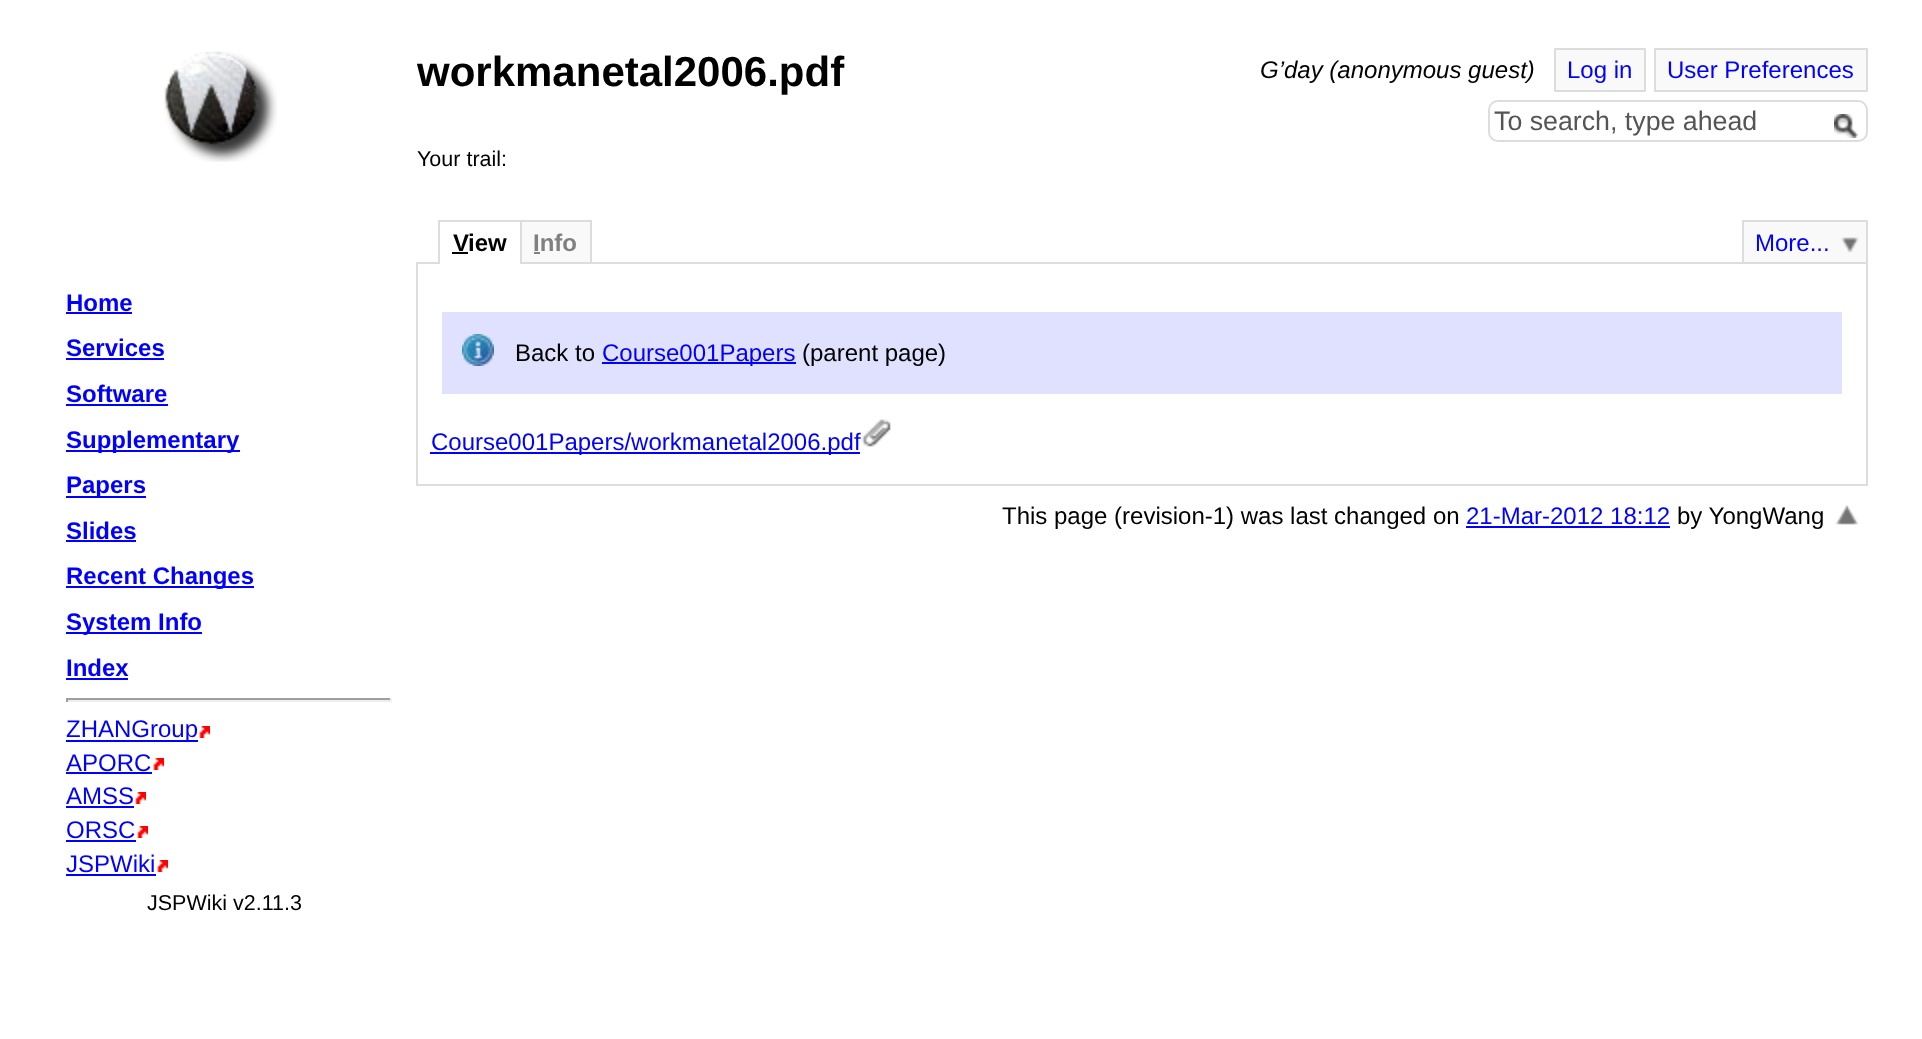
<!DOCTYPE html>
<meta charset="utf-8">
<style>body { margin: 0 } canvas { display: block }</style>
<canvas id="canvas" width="1922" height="1039"></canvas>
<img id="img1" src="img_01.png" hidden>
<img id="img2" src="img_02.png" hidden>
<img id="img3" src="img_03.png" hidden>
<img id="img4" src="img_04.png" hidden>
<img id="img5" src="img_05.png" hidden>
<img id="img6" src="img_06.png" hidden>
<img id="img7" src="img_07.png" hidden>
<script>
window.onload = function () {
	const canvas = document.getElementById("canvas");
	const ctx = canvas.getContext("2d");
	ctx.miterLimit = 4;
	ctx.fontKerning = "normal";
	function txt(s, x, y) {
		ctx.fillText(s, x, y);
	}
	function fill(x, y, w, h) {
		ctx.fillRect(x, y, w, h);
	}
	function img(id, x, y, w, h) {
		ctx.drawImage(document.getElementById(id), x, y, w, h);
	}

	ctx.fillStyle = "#FFFFFF";
	fill(0, 0, 1922, 1039);
	img("img1", 163, 51, 114, 111);
	ctx.fillStyle = "#F9F9F9";
	ctx.beginPath();
	ctx.rect(1555, 49, 90, 42);
	ctx.fill();
	ctx.strokeStyle = "#DDDDDD";
	ctx.lineWidth = 2;
	ctx.stroke();
	ctx.beginPath();
	ctx.rect(1655, 49, 212, 42);
	ctx.fill();
	ctx.stroke();
	ctx.beginPath();
	ctx.roundRect(1489, 101, 378, 40, 9);
	ctx.stroke();
	img("img2", 1834, 114, 24, 24);
	ctx.fillStyle = "#0000FF";
	fill(66, 312, 66, 2);
	fill(66, 358, 98, 2);
	fill(66, 404, 102, 2);
	fill(66, 450, 174, 2);
	fill(66, 496, 80, 2);
	fill(66, 540, 70, 2);
	fill(66, 586, 188, 2);
	fill(66, 632, 136, 2);
	fill(66, 678, 62, 2);
	ctx.fillStyle = "#9F9F9F";
	fill(66, 698, 326, 2);
	ctx.fillStyle = "#EEEEEE";
	fill(390, 698, 2, 4);
	fill(66, 700, 326, 2);
	ctx.fillStyle = "#9F9F9F";
	fill(66, 698, 2, 4);
	ctx.fillStyle = "#0000FF";
	fill(66, 740, 132, 2);
	img("img3", 199, 726, 11, 12);
	fill(66, 772, 86, 2);
	img("img3", 153, 758, 11, 12);
	fill(66, 806, 68, 2);
	img("img3", 135, 792, 11, 12);
	fill(66, 840, 70, 2);
	img("img3", 137, 826, 11, 12);
	fill(66, 874, 90, 2);
	img("img3", 157, 860, 11, 12);
	ctx.fillStyle = "#DDDDDD";
	fill(438, 220, 84, 2);
	ctx.strokeRect(417, 263, 1450, 222);
	ctx.fillStyle = "#FFFFFF";
	fill(438, 262, 84, 2);
	ctx.fillStyle = "#DDDDDD";
	fill(438, 220, 2, 44);
	ctx.fillStyle = "#000000";
	fill(452, 252, 16, 2);
	ctx.fillStyle = "#F9F9F9";
	ctx.beginPath();
	ctx.rect(521, 221, 70, 42);
	ctx.fill();
	ctx.stroke();
	ctx.fillStyle = "#808080";
	fill(534, 252, 6, 2);
	ctx.fillStyle = "#F9F9F9";
	fill(1744, 222, 122, 40);
	img("img4", 1841, 237, 18, 16);
	ctx.fillStyle = "#DDDDDD";
	fill(1742, 220, 126, 2);
	fill(1866, 220, 2, 42);
	fill(1742, 220, 2, 42);
	ctx.fillStyle = "#E0E0FF";
	fill(442, 312, 1400, 82);
	img("img5", 462, 334, 32, 32);
	ctx.fillStyle = "#0000FF";
	fill(602, 362, 194, 2);
	fill(430, 452, 430, 2);
	img("img6", 861, 419, 30, 28);
	fill(1466, 526, 204, 2);
	img("img7", 1835, 505, 24, 20);
	ctx.font = "bold 42px Liberation Sans";
	ctx.fillStyle = "#000000";
	txt("workmanetal2006.pdf", 417, 86);
	ctx.font = "italic 24px Liberation Sans";
	txt("G’day (anonymous guest)", 1260, 78);
	ctx.font = "24px Liberation Sans";
	ctx.fillStyle = "#0000FF";
	txt("Log in", 1567, 78);
	txt("User Preferences", 1667, 78);
	ctx.font = "26.75px Liberation Sans";
	ctx.fillStyle = "#555555";
	txt("To search, type ahead", 1494, 130);
	ctx.font = "21.5px Liberation Sans";
	ctx.fillStyle = "#000000";
	txt("Your trail:", 417, 166);
	ctx.font = "bold 24px Liberation Sans";
	ctx.fillStyle = "#0000FF";
	txt("Home", 66, 311);
	txt("Services", 66, 356);
	txt("Software", 66, 402);
	txt("Supplementary", 66, 448);
	txt("Papers", 66, 493);
	txt("Slides", 66, 539);
	txt("Recent Changes", 66, 584);
	txt("System Info", 66, 630);
	txt("Index", 66, 676);
	ctx.font = "24px Liberation Sans";
	txt("ZHANGroup", 66, 737);
	txt("APORC", 66, 771);
	txt("AMSS", 66, 804);
	txt("ORSC", 66, 838);
	txt("JSPWiki", 66, 872);
	ctx.font = "21.5px Liberation Sans";
	ctx.fillStyle = "#000000";
	txt("JSPWiki v2.11.3", 147, 910);
	ctx.font = "bold 24px Liberation Sans";
	txt("V", 453, 251);
	txt("iew", 468, 251);
	ctx.fillStyle = "#808080";
	txt("Info", 533, 251);
	ctx.font = "24px Liberation Sans";
	ctx.fillStyle = "#0000FF";
	txt("More...", 1755, 251);
	ctx.fillStyle = "#000000";
	txt("Back to", 515, 361);
	ctx.fillStyle = "#0000FF";
	txt("Course001Papers", 602, 361);
	ctx.fillStyle = "#000000";
	txt("(parent page)", 802, 361);
	ctx.fillStyle = "#0000FF";
	txt("Course001Papers/workmanetal2006.pdf", 431, 450);
	ctx.fillStyle = "#000000";
	txt("This page (revision-1) was last changed on", 1002, 524);
	ctx.fillStyle = "#0000FF";
	txt("21-Mar-2012 18:12", 1466, 524);
	ctx.fillStyle = "#000000";
	txt("by YongWang", 1677, 524);
};
</script>
